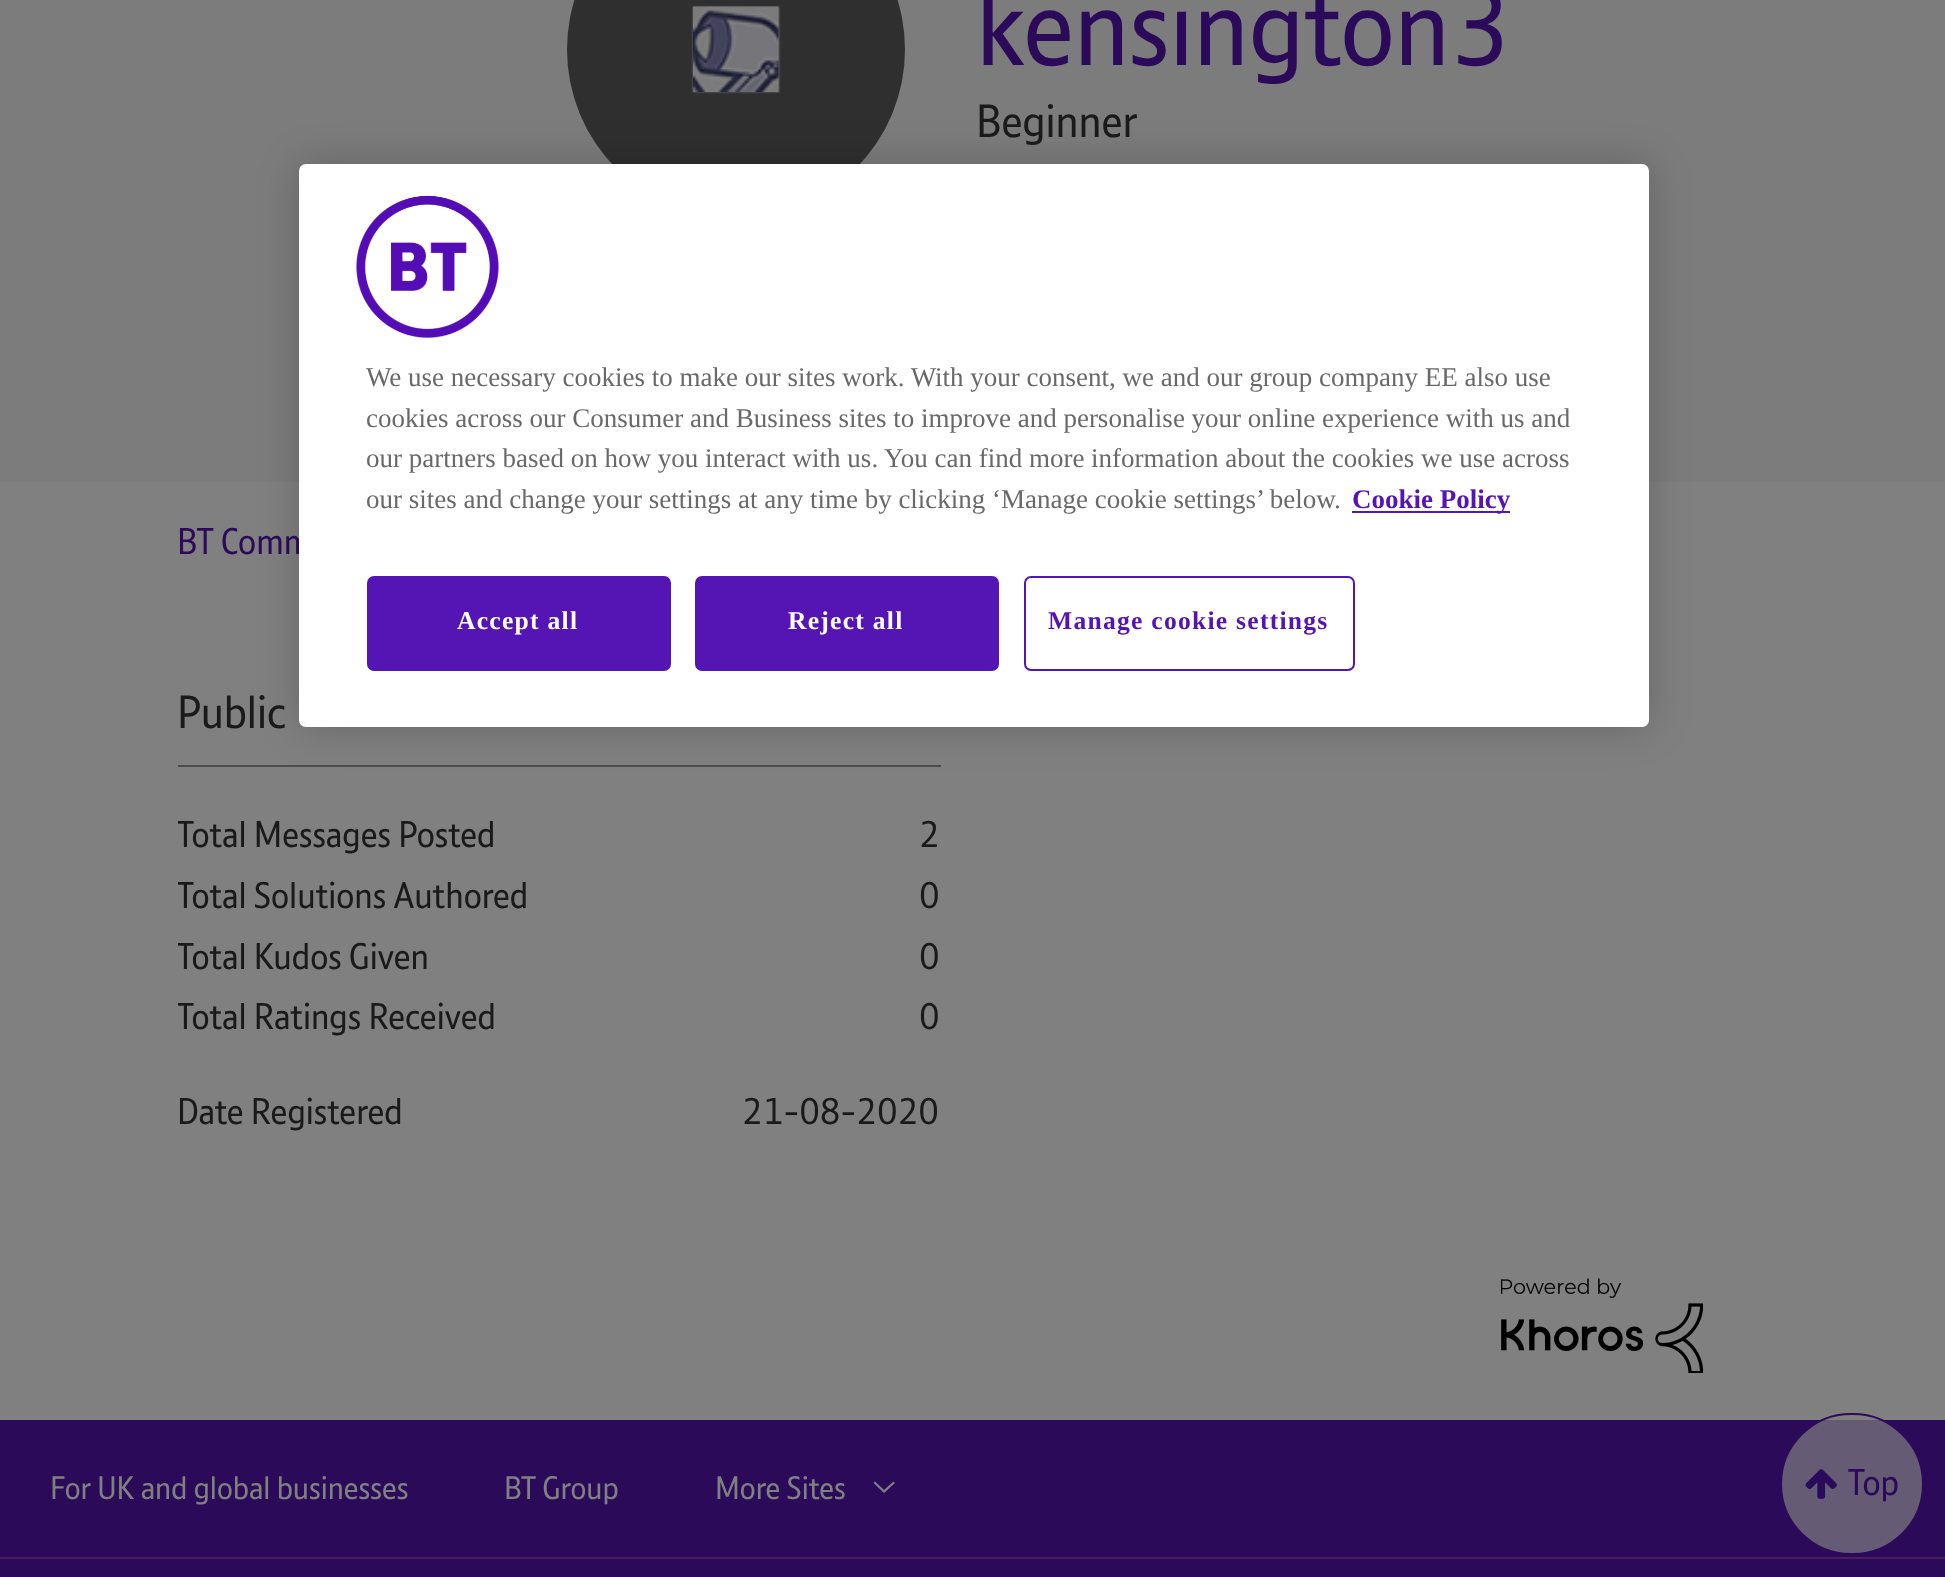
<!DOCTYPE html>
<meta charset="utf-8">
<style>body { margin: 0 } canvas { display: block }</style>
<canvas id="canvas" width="1945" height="1577"></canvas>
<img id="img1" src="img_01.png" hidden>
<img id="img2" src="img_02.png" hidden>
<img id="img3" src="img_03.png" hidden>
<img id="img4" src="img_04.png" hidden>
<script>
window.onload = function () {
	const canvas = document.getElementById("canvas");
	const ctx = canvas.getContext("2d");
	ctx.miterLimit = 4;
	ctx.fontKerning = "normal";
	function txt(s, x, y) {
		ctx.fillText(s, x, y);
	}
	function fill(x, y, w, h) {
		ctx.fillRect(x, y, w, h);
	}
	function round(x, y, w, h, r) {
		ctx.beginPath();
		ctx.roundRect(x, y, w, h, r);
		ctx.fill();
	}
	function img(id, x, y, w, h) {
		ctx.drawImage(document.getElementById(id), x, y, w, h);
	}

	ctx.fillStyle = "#808080";
	fill(0, 0, 1945, 1577);
	ctx.fillStyle = "#7C7C7C";
	fill(0, 0, 1945, 482);
	ctx.fillStyle = "#2F2F2F";
	round(567, -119, 338, 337, 168.5);
	ctx.fillStyle = "#6F6F6F";
	ctx.filter = "blur(1px)";
	ctx.beginPath();
	ctx.rect(693, 7, 86, 85);
	ctx.fill();
	ctx.filter = "none";
	img("img1", 693, 6, 86, 86);
	ctx.fillStyle = "#4D4D4D";
	fill(178, 765, 763, 2);
	img("img2", 1501, 1278, 202, 95);
	ctx.fillStyle = "#2B0A5A";
	fill(0, 1420, 1945, 157);
	ctx.fillStyle = "rgba(128, 128, 128, 0.69)";
	ctx.beginPath();
	ctx.roundRect(1781, 1414, 142, 140, 70);
	ctx.fill();
	ctx.strokeStyle = "#2B0A5A";
	ctx.lineWidth = 2;
	ctx.stroke();
	img("img3", 1805, 1469, 32, 30);
	ctx.fillStyle = "#808080";
	ctx.beginPath();
	ctx.moveTo(875, 1481.5);
	ctx.lineTo(884, 1490);
	ctx.lineTo(893.5, 1481.5);
	ctx.lineTo(895, 1483);
	ctx.lineTo(884, 1493);
	ctx.lineTo(873.5, 1483);
	ctx.closePath();
	ctx.fill();
	ctx.fillStyle = "#4A1F5B";
	fill(0, 1557, 1945, 2);
	ctx.fillStyle = "rgba(0, 0, 0, 0.2)";
	ctx.filter = "blur(20px)";
	ctx.beginPath();
	ctx.roundRect(299, 164, 1350, 563, 7);
	ctx.fill();
	ctx.filter = "none";
	ctx.font = "108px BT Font";
	ctx.fillStyle = "#2B0A5A";
	txt("kensington3", 976, 65);
	ctx.font = "45px BT Font";
	ctx.fillStyle = "#1A1A1A";
	txt("Beginner", 976, 137);
	ctx.font = "36px BT Font";
	ctx.fillStyle = "#2B0A5A";
	txt("BT Comm", 177, 554);
	ctx.font = "45px BT Font";
	ctx.fillStyle = "#1A1A1A";
	txt("Public", 177, 728);
	ctx.save();
	ctx.beginPath();
	ctx.rect(178, 812, 317, 61);
	ctx.clip();
	ctx.font = "36px BT Font";
	txt("Total Messages Posted", 177, 847);
	ctx.restore();
	ctx.font = "36px BT Font";
	txt("2", 919, 847);
	ctx.save();
	ctx.beginPath();
	ctx.rect(178, 873, 351, 61);
	ctx.clip();
	txt("Total Solutions Authored", 177, 908);
	ctx.restore();
	txt("0", 919, 908);
	ctx.save();
	ctx.beginPath();
	ctx.rect(178, 934, 252, 61);
	ctx.clip();
	txt("Total Kudos Given", 177, 969);
	ctx.restore();
	txt("0", 919, 969);
	ctx.save();
	ctx.beginPath();
	ctx.rect(178, 995, 317, 60);
	ctx.clip();
	txt("Total Ratings Received", 177, 1029);
	ctx.restore();
	txt("0", 919, 1029);
	txt("Date Registered", 177, 1124);
	txt("21-08-2020", 742, 1124);
	ctx.fillStyle = "#2B0A5A";
	txt("Top", 1848, 1495);
	ctx.font = "31.5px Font";
	ctx.fillStyle = "#808080";
	txt("For UK and global businesses", 50, 1499);
	txt("BT Group", 504, 1499);
	txt("More Sites", 715, 1499);
	ctx.fillStyle = "#FFFFFF";
	round(299, 164, 1350, 563, 7);
	img("img4", 356, 195, 143, 143);
	ctx.font = "27px Liberation Serif";
	ctx.fillStyle = "#696969";
	txt("We use necessary cookies to make our sites work. With your consent, we and our group company EE also use", 366, 386);
	txt("cookies across our Consumer and Business sites to improve and personalise your online experience with us and", 366, 427);
	txt("our partners based on how you interact with us. You can find more information about the cookies we use across", 366, 467);
	txt("our sites and change your settings at any time by clicking ‘Manage cookie settings’ below.", 366, 508);
	ctx.fillStyle = "#5514B4";
	fill(1352, 511, 158, 2);
	ctx.font = "bold 27px Liberation Serif";
	txt("Cookie Policy", 1352, 508);
	ctx.beginPath();
	ctx.roundRect(368, 577, 302, 93, 6);
	ctx.fill();
	ctx.strokeStyle = "#5514B4";
	ctx.stroke();
	ctx.letterSpacing = "1.25px";
	ctx.font = "bold 25.6px Liberation Serif";
	ctx.fillStyle = "#FFFFFF";
	txt("Accept all", 457, 629);
	ctx.fillStyle = "#5514B4";
	ctx.beginPath();
	ctx.roundRect(696, 577, 302, 93, 6);
	ctx.fill();
	ctx.stroke();
	ctx.fillStyle = "#FFFFFF";
	txt("Reject all", 788, 629);
	ctx.beginPath();
	ctx.roundRect(1025, 577, 329, 93, 6);
	ctx.stroke();
	ctx.fillStyle = "#5514B4";
	txt("Manage cookie settings", 1048, 629);
};
</script>
